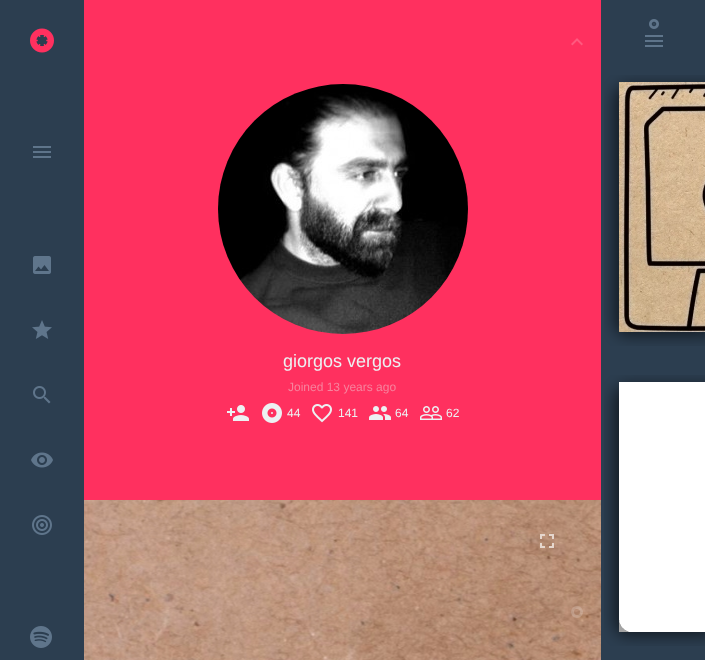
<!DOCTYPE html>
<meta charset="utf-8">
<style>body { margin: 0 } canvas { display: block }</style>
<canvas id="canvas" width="705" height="660"></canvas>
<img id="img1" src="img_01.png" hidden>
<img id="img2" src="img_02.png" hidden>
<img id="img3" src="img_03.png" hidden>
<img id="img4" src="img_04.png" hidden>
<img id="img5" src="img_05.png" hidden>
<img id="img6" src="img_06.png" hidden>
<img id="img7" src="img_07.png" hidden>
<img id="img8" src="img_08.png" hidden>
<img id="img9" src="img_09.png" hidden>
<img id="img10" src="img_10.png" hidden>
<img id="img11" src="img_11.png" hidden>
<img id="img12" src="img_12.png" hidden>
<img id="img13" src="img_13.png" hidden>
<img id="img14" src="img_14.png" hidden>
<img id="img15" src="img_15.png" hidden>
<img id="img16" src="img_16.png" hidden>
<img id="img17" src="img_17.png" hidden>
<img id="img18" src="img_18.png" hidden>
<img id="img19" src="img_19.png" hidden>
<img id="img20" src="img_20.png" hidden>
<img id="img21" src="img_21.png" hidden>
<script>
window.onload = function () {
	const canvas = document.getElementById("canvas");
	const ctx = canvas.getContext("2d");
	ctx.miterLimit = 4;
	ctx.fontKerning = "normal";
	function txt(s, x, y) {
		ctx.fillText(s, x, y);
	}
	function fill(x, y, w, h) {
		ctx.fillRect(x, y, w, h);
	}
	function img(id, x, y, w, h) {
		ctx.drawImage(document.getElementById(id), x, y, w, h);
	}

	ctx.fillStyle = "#2C3E50";
	fill(0, 0, 705, 660);
	img("img1", 30, 28, 24, 25);
	img("img2", 33, 146, 18, 12);
	img("img3", 33, 256, 18, 18);
	img("img4", 32, 320, 20, 19);
	img("img5", 33, 386, 18, 18);
	img("img6", 31, 452, 22, 16);
	img("img7", 32, 515, 20, 20);
	img("img8", 30, 626, 22, 22);
	ctx.fillStyle = "#FF305F";
	fill(84, 0, 517, 500);
	img("img9", 571, 38, 12, 8);
	img("img10", 218, 84, 250, 250);
	img("img11", 227, 405, 22, 16);
	img("img12", 262, 403, 20, 20);
	img("img13", 312, 404, 20, 19);
	img("img14", 369, 406, 22, 14);
	img("img15", 420, 406, 22, 14);
	img("img16", 84, 500, 517, 160);
	img("img17", 540, 534, 14, 14);
	ctx.beginPath();
	ctx.arc(577, 612, 4.5, 0, Math.PI * 2);
	ctx.strokeStyle = "rgba(255, 254, 255, 0.2)";
	ctx.lineWidth = 3;
	ctx.stroke();
	img("img18", 649, 19, 10, 10);
	img("img2", 645, 35, 18, 12);
	img("img19", 604, 75, 101, 271);
	img("img20", 619, 82, 86, 250);
	img("img19", 604, 375, 101, 271);
	ctx.fillStyle = "#FFFFFF";
	fill(619, 382, 86, 250);
	img("img21", 619, 620, 10, 12);
	ctx.font = "18px Liberation Sans";
	ctx.fillStyle = "#EDF0F2";
	txt("giorgos vergos", 283, 367);
	ctx.font = "12px Liberation Sans";
	ctx.fillStyle = "#F7839D";
	txt("Joined 13 years ago", 288, 391);
	ctx.fillStyle = "#EDF0F2";
	txt("44", 287, 417);
	txt("141", 338, 417);
	txt("64", 395, 417);
	txt("62", 446, 417);
};
</script>
